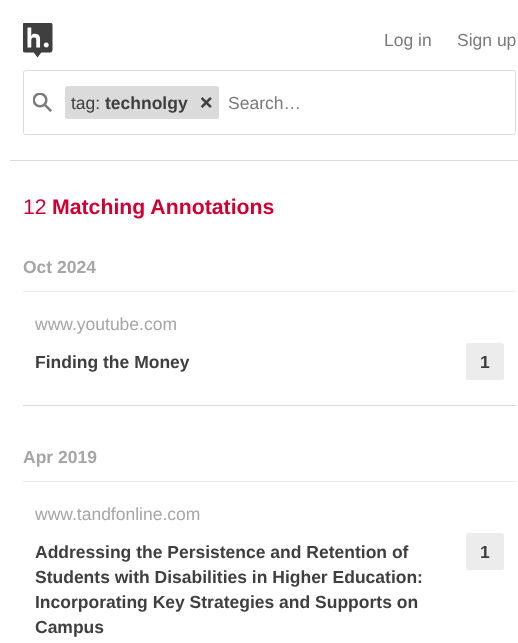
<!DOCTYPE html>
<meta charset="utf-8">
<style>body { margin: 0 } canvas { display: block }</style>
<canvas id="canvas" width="518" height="643"></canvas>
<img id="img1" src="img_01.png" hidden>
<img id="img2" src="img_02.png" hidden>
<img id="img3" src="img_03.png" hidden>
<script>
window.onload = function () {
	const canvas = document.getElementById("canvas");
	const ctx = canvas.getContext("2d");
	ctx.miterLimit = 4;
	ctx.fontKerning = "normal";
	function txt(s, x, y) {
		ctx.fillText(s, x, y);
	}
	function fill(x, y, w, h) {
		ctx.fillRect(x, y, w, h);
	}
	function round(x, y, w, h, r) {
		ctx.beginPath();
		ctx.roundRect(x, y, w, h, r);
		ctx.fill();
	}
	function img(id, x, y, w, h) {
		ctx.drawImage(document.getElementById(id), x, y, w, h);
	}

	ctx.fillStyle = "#FFFFFF";
	fill(0, 0, 518, 643);
	ctx.fillStyle = "#DBDBDB";
	fill(10, 160, 508, 1);
	img("img1", 23, 23, 30, 35);
	ctx.beginPath();
	ctx.roundRect(23.5, 70.5, 492, 64, 2);
	ctx.strokeStyle = "#DBDBDB";
	ctx.stroke();
	img("img2", 33, 93, 19, 19);
	round(65, 86, 154, 33, 2.5);
	img("img3", 200, 97, 12, 11);
	ctx.fillStyle = "#ECECEC";
	fill(23, 291, 493, 1);
	ctx.fillStyle = "#DBDBDB";
	fill(23, 405, 493, 1);
	ctx.fillStyle = "#ECECEC";
	round(466, 343, 38, 37, 2.5);
	fill(23, 481, 493, 1);
	round(466, 533, 38, 37, 2.5);
	ctx.font = "17.5px Liberation Sans";
	ctx.fillStyle = "#7A7A7A";
	txt("Log in", 384, 46);
	txt("Sign up", 457, 46);
	ctx.fillStyle = "#3F3F3F";
	txt("tag:", 71, 109);
	ctx.font = "bold 17.5px Liberation Sans";
	txt("technolgy", 105, 109);
	ctx.font = "17.5px Liberation Sans";
	ctx.fillStyle = "#7A7A7A";
	txt("Search…", 228, 109);
	ctx.font = "21.25px Liberation Sans";
	ctx.fillStyle = "#D00032";
	txt("12", 23, 214);
	ctx.font = "bold 21.25px Liberation Sans";
	txt("Matching Annotations", 52, 214);
	ctx.font = "bold 17.5px Liberation Sans";
	ctx.fillStyle = "#A6A6A6";
	txt("Oct 2024", 23, 273);
	ctx.font = "17.5px Liberation Sans";
	txt("www.youtube.com", 35, 330);
	ctx.font = "bold 17.5px Liberation Sans";
	ctx.fillStyle = "#3F3F3F";
	txt("Finding the Money", 35, 368);
	txt("1", 480, 368);
	ctx.fillStyle = "#A6A6A6";
	txt("Apr 2019", 23, 463);
	ctx.font = "17.5px Liberation Sans";
	txt("www.tandfonline.com", 35, 520);
	ctx.font = "bold 17.5px Liberation Sans";
	ctx.fillStyle = "#3F3F3F";
	txt("Addressing the Persistence and Retention of", 35, 558);
	txt("Students with Disabilities in Higher Education:", 35, 583);
	txt("Incorporating Key Strategies and Supports on", 35, 608);
	txt("Campus", 35, 633);
	txt("1", 480, 558);
};
</script>
